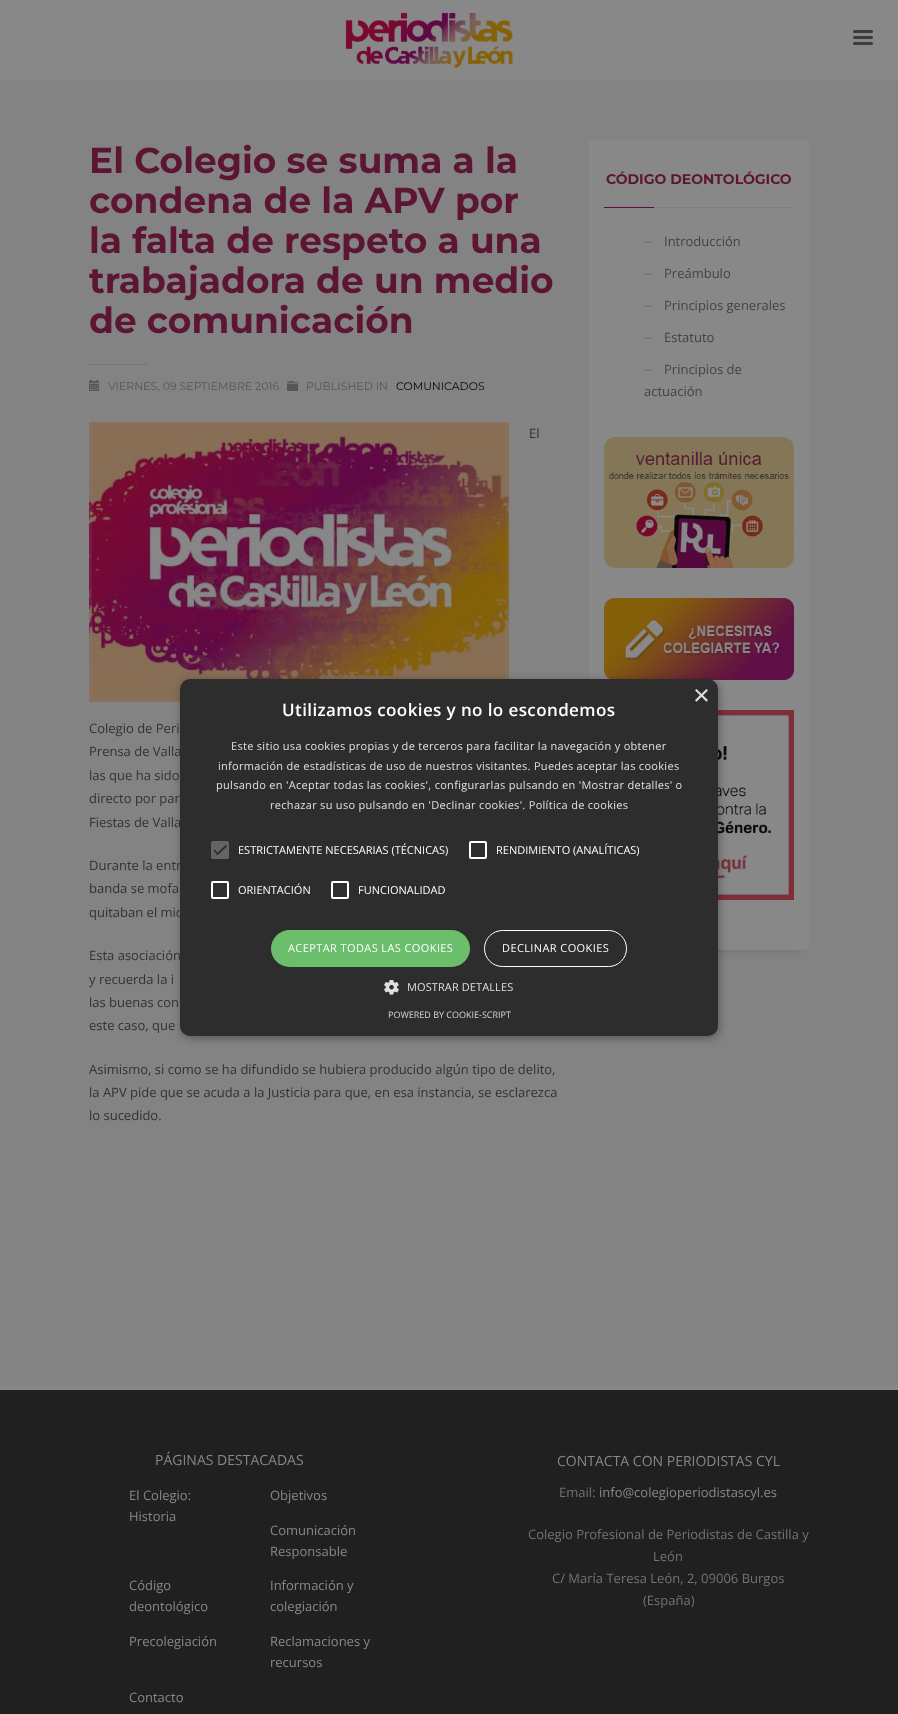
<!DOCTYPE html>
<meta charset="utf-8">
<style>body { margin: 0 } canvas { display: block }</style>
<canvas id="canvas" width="898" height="1714"></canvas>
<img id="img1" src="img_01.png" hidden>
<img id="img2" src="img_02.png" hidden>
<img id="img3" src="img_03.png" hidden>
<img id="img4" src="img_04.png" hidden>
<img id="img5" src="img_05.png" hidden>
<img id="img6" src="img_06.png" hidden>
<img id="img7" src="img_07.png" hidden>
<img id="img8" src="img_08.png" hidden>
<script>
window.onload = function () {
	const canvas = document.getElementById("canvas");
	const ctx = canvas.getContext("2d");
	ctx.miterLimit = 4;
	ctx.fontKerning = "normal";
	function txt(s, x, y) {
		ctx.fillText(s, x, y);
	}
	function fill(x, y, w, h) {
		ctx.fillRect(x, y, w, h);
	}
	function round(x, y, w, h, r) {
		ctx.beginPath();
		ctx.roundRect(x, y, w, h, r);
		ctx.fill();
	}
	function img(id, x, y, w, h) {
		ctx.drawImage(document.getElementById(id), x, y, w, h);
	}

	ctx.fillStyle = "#838383";
	fill(0, 0, 898, 1714);
	ctx.fillStyle = "#888888";
	fill(0, 0, 898, 80);
	img("img1", 345, 12, 168, 56);
	ctx.fillStyle = "#3C3C3C";
	round(853, 30, 20, 3, 1.5);
	round(853, 36, 20, 3, 1.5);
	round(853, 42, 20, 3, 1.5);
	ctx.fillStyle = "#777777";
	fill(89, 364, 60, 1);
	img("img2", 89, 380, 11, 11);
	img("img3", 287, 380, 11, 11);
	img("img4", 89, 422, 420, 280);
	ctx.beginPath();
	ctx.roundRect(90.5, 423.5, 417, 277, 1.5);
	ctx.strokeStyle = "rgba(136, 136, 136, 0.15)";
	ctx.lineWidth = 3;
	ctx.stroke();
	ctx.fillStyle = "rgba(9, 9, 9, 0.15)";
	ctx.filter = "blur(5px)";
	ctx.beginPath();
	ctx.rect(599, 160, 200, 790);
	ctx.fill();
	ctx.filter = "none";
	ctx.fillStyle = "#888888";
	round(589, 140, 220, 810, 3);
	ctx.fillStyle = "#630945";
	fill(604, 207, 50, 1);
	ctx.fillStyle = "#7F7F7F";
	fill(654, 207, 140, 1);
	ctx.fillStyle = "#797979";
	fill(644, 241, 8, 2);
	fill(644, 273, 8, 2);
	fill(644, 305, 8, 2);
	fill(644, 337, 8, 2);
	fill(644, 369, 8, 2);
	img("img5", 604, 437, 190, 131);
	img("img6", 604, 598, 190, 82);
	img("img7", 718, 710, 76, 190);
	ctx.fillStyle = "#202020";
	fill(0, 1390, 898, 324);
	ctx.fillStyle = "#888888";
	fill(0, 1386, 898, 4);
	ctx.fillStyle = "rgba(0, 0, 0, 0.35)";
	ctx.filter = "blur(4px)";
	ctx.beginPath();
	ctx.roundRect(181, 681, 538, 357, 10);
	ctx.fill();
	ctx.filter = "none";
	ctx.font = "bold 36px Montserrat";
	ctx.fillStyle = "#5C1634";
	txt("El Colegio se suma a la", 89, 173);
	txt("condena de la APV por", 89, 213);
	txt("la falta de respeto a una", 89, 253);
	txt("trabajadora de un medio", 89, 293);
	txt("de comunicación", 89, 333);
	ctx.font = "11px Montserrat";
	ctx.fillStyle = "#565656";
	txt("VIERNES, 09 SEPTIEMBRE 2016", 108, 390);
	txt("PUBLISHED IN", 306, 390);
	ctx.fillStyle = "#090909";
	txt("COMUNICADOS", 396, 390);
	ctx.font = "13px Open Sans";
	ctx.fillStyle = "#323232";
	txt("El", 529, 438);
	txt("Colegio de Peri", 89, 733);
	txt("Prensa de Valla", 89, 756);
	txt("las que ha sido", 89, 780);
	txt("directo por par", 89, 803);
	txt("Fiestas de Valla", 89, 827);
	txt("Durante la entr", 89, 870);
	txt("banda se mofa", 89, 893);
	txt("quitaban el mic", 89, 917);
	txt("Esta asociación", 89, 960);
	txt("y recuerda la i", 89, 984);
	txt("las buenas con", 89, 1007);
	txt("este caso, que", 89, 1030);
	txt("Asimismo, si como se ha difundido se hubiera producido algún tipo de delito,", 89, 1074);
	txt("la APV pide que se acuda a la Justicia para que, en esa instancia, se esclarezca", 89, 1097);
	txt("lo sucedido.", 89, 1120);
	ctx.font = "bold 14px Montserrat";
	ctx.fillStyle = "#5C1634";
	txt("CÓDIGO DEONTOLÓGICO", 606, 184);
	ctx.font = "13px Open Sans";
	ctx.fillStyle = "#434343";
	txt("Introducción", 664, 246);
	txt("Preámbulo", 664, 278);
	txt("Principios generales", 664, 310);
	txt("Estatuto", 664, 342);
	txt("Principios de", 664, 374);
	txt("actuación", 644, 396);
	ctx.font = "14px Open Sans";
	ctx.fillStyle = "#888888";
	txt("PÁGINAS DESTACADAS", 155, 1465);
	ctx.font = "13px Open Sans";
	txt("El Colegio:", 129, 1500);
	txt("Historia", 129, 1521);
	txt("Objetivos", 270, 1500);
	txt("Comunicación", 270, 1535);
	txt("Responsable", 270, 1556);
	txt("Código", 129, 1590);
	txt("deontológico", 129, 1611);
	txt("Información y", 270, 1590);
	txt("colegiación", 270, 1611);
	txt("Precolegiación", 129, 1646);
	txt("Reclamaciones y", 270, 1646);
	txt("recursos", 270, 1667);
	txt("Contacto", 129, 1702);
	ctx.font = "14px Open Sans";
	txt("CONTACTA CON PERIODISTAS CYL", 557, 1466);
	ctx.font = "13px Open Sans";
	ctx.fillStyle = "#737373";
	txt("Email:", 559, 1497);
	ctx.fillStyle = "#888888";
	txt("info@colegioperiodistascyl.es", 599, 1497);
	ctx.fillStyle = "#737373";
	txt("Colegio Profesional de Periodistas de Castilla y", 528, 1539);
	txt("León", 653, 1561);
	txt("C/ María Teresa León, 2, 09006 Burgos", 552, 1583);
	txt("(España)", 643, 1605);
	ctx.fillStyle = "#2D2D2D";
	round(180, 679, 538, 357, 10);
	ctx.font = "29px Liberation Sans";
	ctx.fillStyle = "#E0E0E0";
	txt("×", 693, 705);
	ctx.letterSpacing = "0.4px";
	ctx.font = "600 17px Open Sans";
	ctx.fillStyle = "#FFFFFF";
	txt("Utilizamos cookies y no lo escondemos", 282, 716);
	ctx.letterSpacing = "0.3px";
	ctx.font = "11px Open Sans";
	ctx.fillStyle = "#E0E0E0";
	txt("Este sitio usa cookies propias y de terceros para facilitar la navegación y obtener", 231, 750);
	txt("información de estadísticas de uso de nuestros visitantes. Puedes aceptar las cookies", 218, 770);
	txt("pulsando en 'Aceptar todas las cookies', configurarlas pulsando en 'Mostrar detalles' o", 216, 789);
	txt("rechazar su uso pulsando en 'Declinar cookies'. Política de cookies", 270, 809);
	ctx.fillStyle = "#646464";
	round(211, 841, 18, 18, 2);
	ctx.beginPath();
	ctx.moveTo(214, 850);
	ctx.lineTo(217.5, 854);
	ctx.lineTo(226.5, 845.5);
	ctx.strokeStyle = "#2D2D2D";
	ctx.lineWidth = 1.8;
	ctx.stroke();
	ctx.letterSpacing = "0px";
	ctx.fillStyle = "#FFFFFF";
	txt("ESTRICTAMENTE NECESARIAS (TÉCNICAS)", 238, 854);
	ctx.beginPath();
	ctx.roundRect(470, 842, 16, 16, 1);
	ctx.strokeStyle = "#FFFFFF";
	ctx.lineWidth = 2;
	ctx.stroke();
	txt("RENDIMIENTO (ANALÍTICAS)", 496, 854);
	ctx.beginPath();
	ctx.roundRect(212, 882, 16, 16, 1);
	ctx.stroke();
	txt("ORIENTACIÓN", 238, 894);
	ctx.beginPath();
	ctx.roundRect(332, 882, 16, 16, 1);
	ctx.stroke();
	txt("FUNCIONALIDAD", 358, 894);
	ctx.fillStyle = "#6BBE6B";
	round(271, 930, 199, 37, 18.5);
	ctx.letterSpacing = "0.4px";
	ctx.fillStyle = "#FFFFFF";
	txt("ACEPTAR TODAS LAS COOKIES", 288, 952);
	ctx.beginPath();
	ctx.roundRect(484.5, 930.5, 142, 36, 18);
	ctx.lineWidth = 1;
	ctx.stroke();
	txt("DECLINAR COOKIES", 502, 952);
	img("img8", 384, 980, 15, 15);
	ctx.letterSpacing = "0.1px";
	ctx.fillStyle = "#E0E0E0";
	txt("MOSTRAR DETALLES", 407, 991);
	ctx.letterSpacing = "0px";
	ctx.font = "9px Open Sans";
	ctx.fillStyle = "#D5D5D5";
	txt("POWERED BY COOKIE-SCRIPT", 388, 1018);
};
</script>
